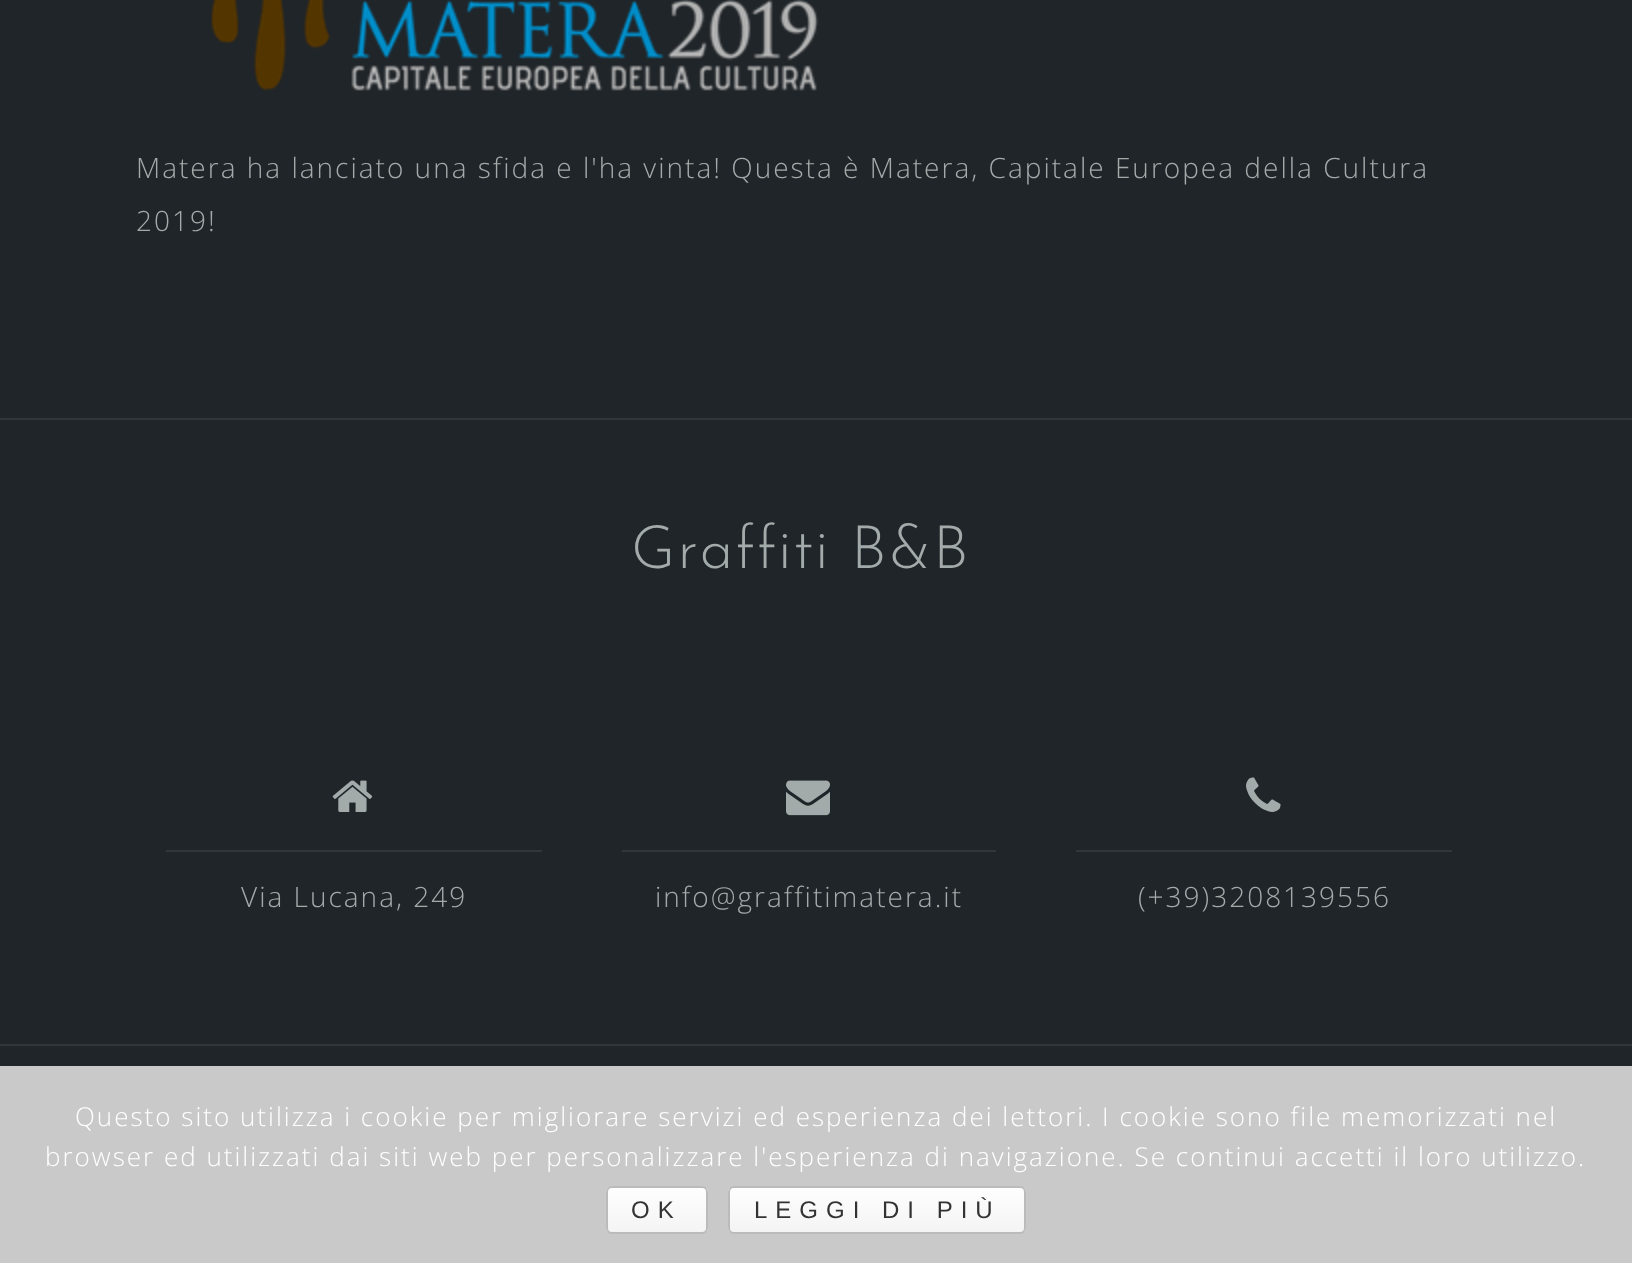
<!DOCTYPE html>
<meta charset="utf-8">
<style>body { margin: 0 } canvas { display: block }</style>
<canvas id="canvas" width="1632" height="1263"></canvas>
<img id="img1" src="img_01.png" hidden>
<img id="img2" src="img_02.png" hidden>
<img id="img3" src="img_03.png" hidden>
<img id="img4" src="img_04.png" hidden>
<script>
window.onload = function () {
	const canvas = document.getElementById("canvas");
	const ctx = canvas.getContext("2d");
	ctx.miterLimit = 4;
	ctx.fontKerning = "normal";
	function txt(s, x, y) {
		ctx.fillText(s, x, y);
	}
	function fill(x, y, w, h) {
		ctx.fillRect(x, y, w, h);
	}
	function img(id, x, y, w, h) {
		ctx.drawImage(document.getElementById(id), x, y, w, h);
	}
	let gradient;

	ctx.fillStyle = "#202529";
	fill(0, 0, 1632, 1263);
	ctx.fillStyle = "#32363A";
	fill(0, 418, 1632, 2);
	img("img1", 211, 0, 608, 91);
	fill(0, 1044, 1632, 2);
	img("img2", 332, 780, 41, 32);
	fill(166, 850, 376, 2);
	img("img3", 786, 780, 44, 36);
	fill(622, 850, 374, 2);
	img("img4", 1246, 777, 35, 35);
	fill(1076, 850, 376, 2);
	ctx.fillStyle = "#C9C9C9";
	fill(0, 1066, 1632, 197);
	ctx.save();
	ctx.beginPath();
	ctx.roundRect(606, 1186, 102, 48, 6);
	ctx.clip();
	gradient = ctx.createLinearGradient(657, 1188, 657, 1232);
	gradient.addColorStop(0, "#FEFEFE");
	gradient.addColorStop(1, "#F4F4F4");
	ctx.fillStyle = gradient;
	fill(606, 1188, 102, 44);
	ctx.restore();
	ctx.beginPath();
	ctx.roundRect(607, 1187, 100, 46, 5);
	ctx.strokeStyle = "#BBBBBB";
	ctx.lineWidth = 2;
	ctx.stroke();
	ctx.save();
	ctx.beginPath();
	ctx.roundRect(728, 1186, 298, 48, 6);
	ctx.clip();
	gradient = ctx.createLinearGradient(877, 1188, 877, 1232);
	gradient.addColorStop(0, "#FEFEFE");
	gradient.addColorStop(1, "#F4F4F4");
	ctx.fillStyle = gradient;
	fill(728, 1188, 298, 44);
	ctx.restore();
	ctx.beginPath();
	ctx.roundRect(729, 1187, 296, 46, 5);
	ctx.stroke();
	ctx.letterSpacing = "2px";
	ctx.font = "300 28px Open Sans";
	ctx.fillStyle = "#A3AAAA";
	txt("Matera ha lanciato una sfida e l'ha vinta! Questa è Matera, Capitale Europea della Cultura", 136, 178);
	txt("2019!", 136, 231);
	ctx.font = "100 60px Josefin Sans";
	txt("Graffiti B&B", 631, 568);
	ctx.font = "300 28px Open Sans";
	txt("Via Lucana, 249", 241, 907);
	txt("info@graffitimatera.it", 655, 907);
	txt("(+39)3208139556", 1138, 907);
	ctx.font = "300 26px Open Sans";
	ctx.fillStyle = "#FFFFFF";
	txt("Questo sito utilizza i cookie per migliorare servizi ed esperienza dei lettori. I cookie sono file memorizzati nel", 75, 1126);
	txt("browser ed utilizzati dai siti web per personalizzare l'esperienza di navigazione. Se continui accetti il loro utilizzo.", 45, 1166);
	ctx.letterSpacing = "8px";
	ctx.font = "24px Liberation Sans";
	ctx.fillStyle = "#333333";
	txt("OK", 631, 1218);
	txt("LEGGI DI PIÙ", 754, 1218);
};
</script>
